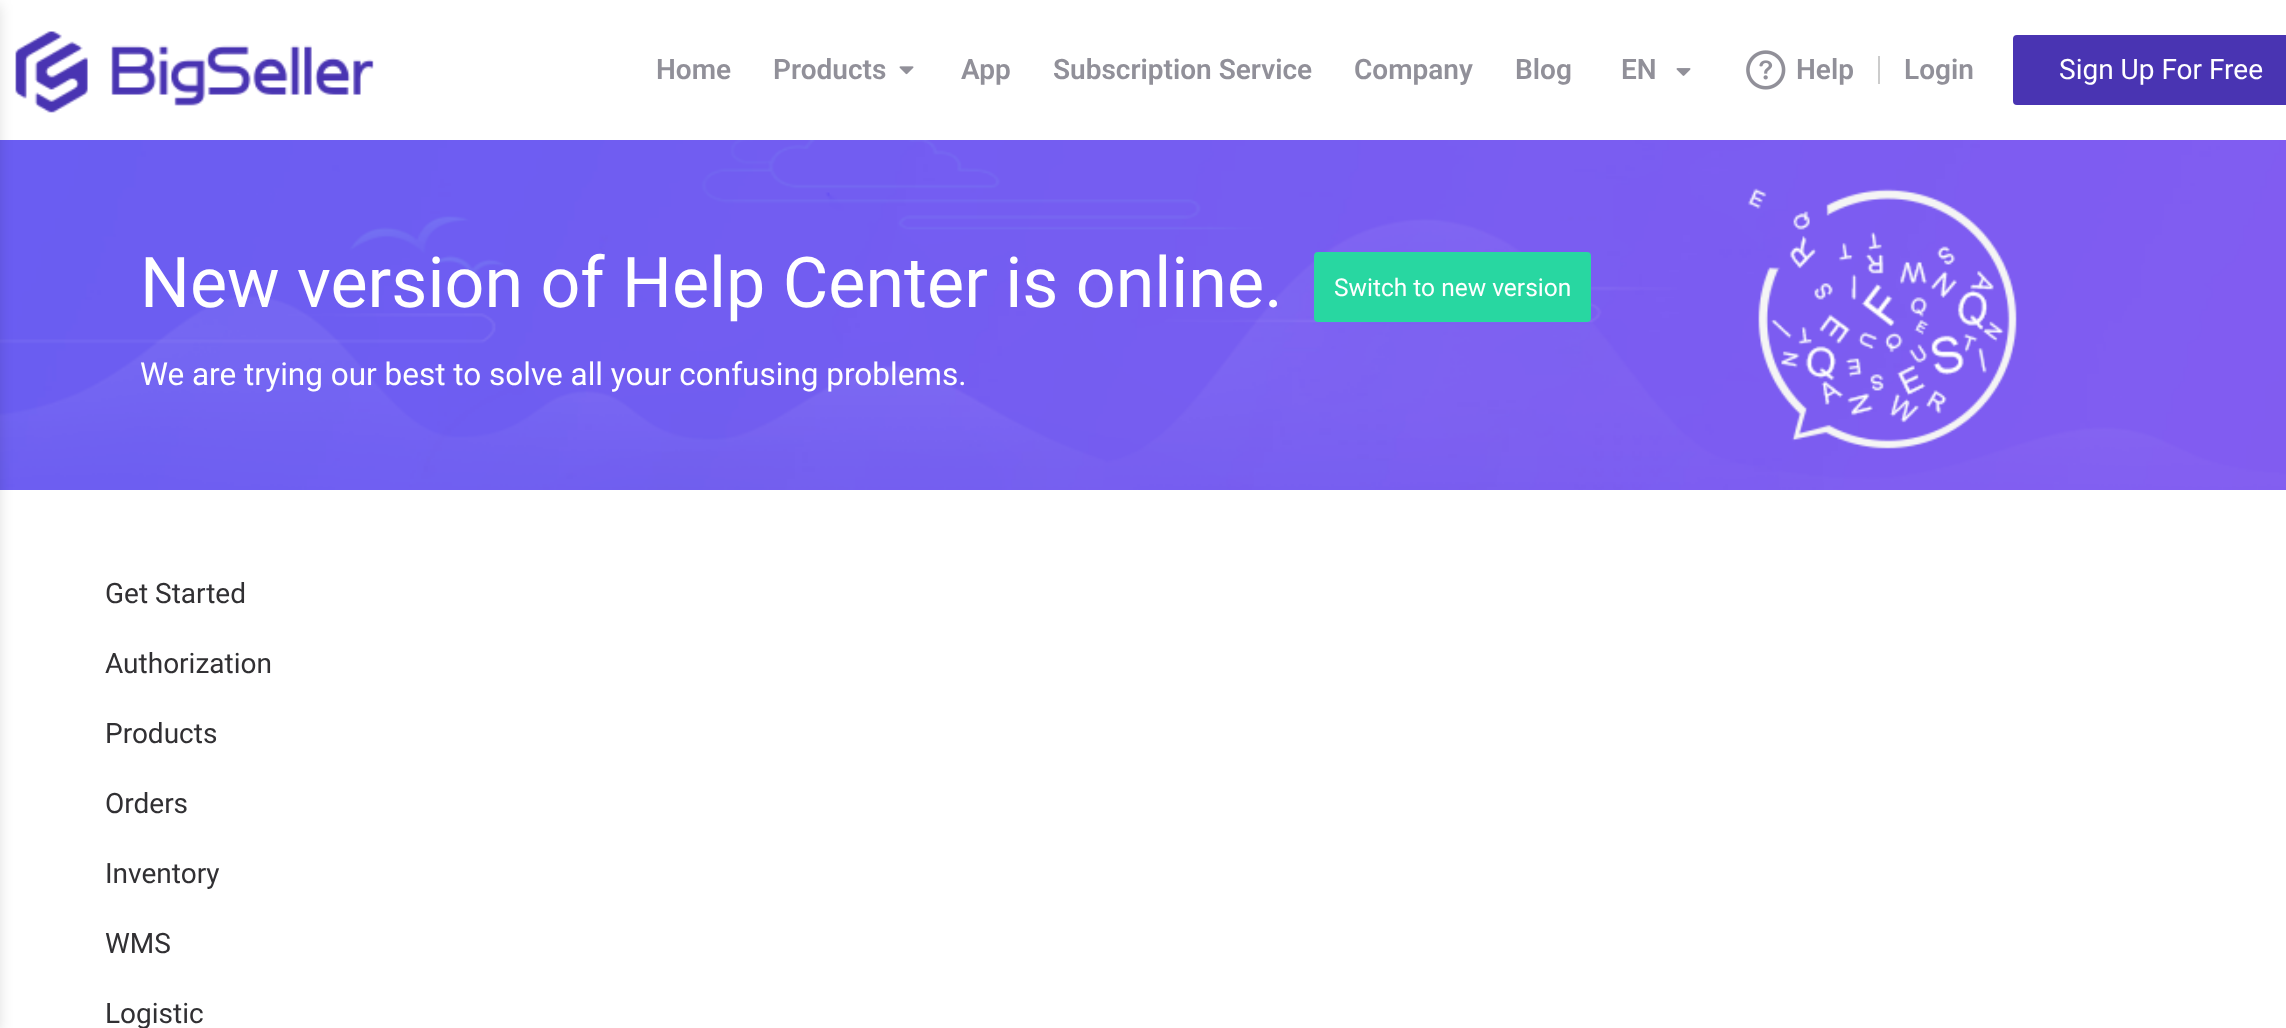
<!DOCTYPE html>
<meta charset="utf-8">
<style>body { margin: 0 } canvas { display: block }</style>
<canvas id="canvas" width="2286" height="1028"></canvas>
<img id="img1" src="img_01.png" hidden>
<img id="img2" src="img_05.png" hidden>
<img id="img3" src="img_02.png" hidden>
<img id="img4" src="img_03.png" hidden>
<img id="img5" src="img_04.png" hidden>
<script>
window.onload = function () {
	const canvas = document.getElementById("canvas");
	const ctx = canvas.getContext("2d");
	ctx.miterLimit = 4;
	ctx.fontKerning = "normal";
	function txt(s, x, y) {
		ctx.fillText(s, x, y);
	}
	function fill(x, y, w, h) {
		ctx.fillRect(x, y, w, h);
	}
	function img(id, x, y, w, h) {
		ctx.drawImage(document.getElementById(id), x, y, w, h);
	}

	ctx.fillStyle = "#FFFFFF";
	fill(0, 0, 2286, 1028);
	img("img1", 15, 31, 359, 82);
	img("img2", 0, 140, 2286, 350);
	ctx.fillStyle = "rgba(0, 0, 0, 0.12)";
	ctx.filter = "blur(7px)";
	ctx.beginPath();
	ctx.roundRect(-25, 4, 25, 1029, 4);
	ctx.fill();
	ctx.filter = "none";
	img("img3", 899, 66, 15, 9);
	img("img4", 1676, 68, 15, 8);
	img("img5", 1746, 50, 40, 40);
	ctx.fillStyle = "#CCCCCC";
	fill(1878, 56, 2, 28);
	ctx.fillStyle = "#4934B2";
	ctx.beginPath();
	ctx.roundRect(2014, 36, 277, 68, 3);
	ctx.fill();
	ctx.strokeStyle = "#4934B2";
	ctx.lineWidth = 2;
	ctx.stroke();
	ctx.fillStyle = "#28D7A1";
	ctx.beginPath();
	ctx.roundRect(1315, 253, 275, 68, 3);
	ctx.fill();
	ctx.strokeStyle = "#28D7A1";
	ctx.stroke();
	ctx.font = "600 28px Roboto";
	ctx.fillStyle = "#919099";
	txt("Home", 656, 79);
	txt("Products", 773, 79);
	txt("App", 961, 79);
	txt("Subscription Service", 1053, 79);
	txt("Company", 1354, 79);
	txt("Blog", 1515, 79);
	txt("EN", 1621, 79);
	txt("Help", 1796, 79);
	txt("Login", 1904, 79);
	ctx.font = "28px Roboto";
	ctx.fillStyle = "#FFFFFF";
	txt("Sign Up For Free", 2059, 79);
	ctx.font = "70px Roboto";
	txt("New version of Help Center is online.", 140, 307);
	ctx.font = "24.5px Roboto";
	txt("Switch to new version", 1334, 296);
	ctx.font = "31.5px Roboto";
	txt("We are trying our best to solve all your confusing problems.", 140, 385);
	ctx.font = "28px Roboto";
	ctx.fillStyle = "#313033";
	txt("Get Started", 105, 603);
	txt("Authorization", 105, 673);
	txt("Products", 105, 743);
	txt("Orders", 105, 813);
	txt("Inventory", 105, 883);
	txt("WMS", 105, 953);
	txt("Logistic", 105, 1023);
};
</script>
